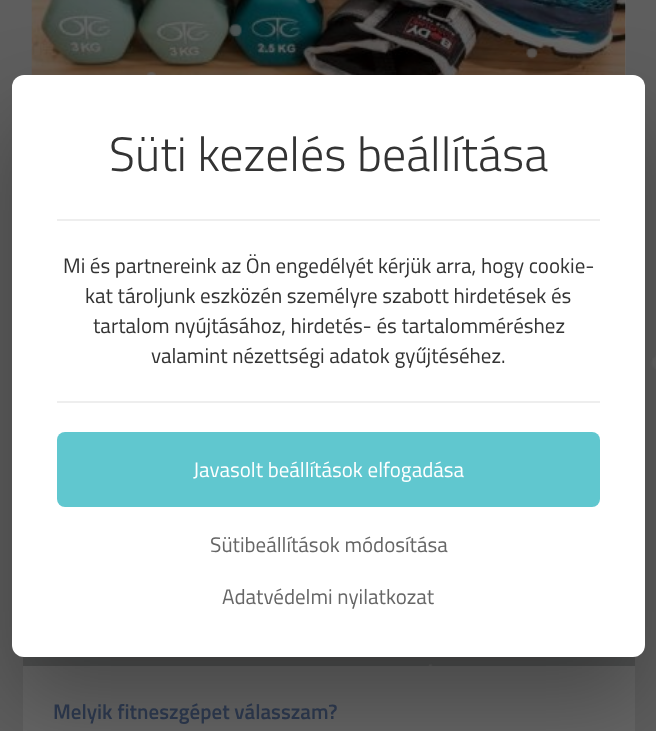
<!DOCTYPE html>
<meta charset="utf-8">
<style>body { margin: 0 } canvas { display: block }</style>
<canvas id="canvas" width="656" height="731"></canvas>
<img id="img1" src="img_02.png" hidden>
<img id="img2" src="img_01.png" hidden>
<script>
window.onload = function () {
	const canvas = document.getElementById("canvas");
	const ctx = canvas.getContext("2d");
	ctx.miterLimit = 4;
	ctx.fontKerning = "normal";
	function txt(s, x, y) {
		ctx.fillText(s, x, y);
	}
	function fill(x, y, w, h) {
		ctx.fillRect(x, y, w, h);
	}
	function round(x, y, w, h, r) {
		ctx.beginPath();
		ctx.roundRect(x, y, w, h, r);
		ctx.fill();
	}
	function img(id, x, y, w, h) {
		ctx.drawImage(document.getElementById(id), x, y, w, h);
	}

	ctx.fillStyle = "#5E5E5E";
	fill(0, 0, 656, 731);
	ctx.fillStyle = "#666666";
	fill(625, 0, 1, 75);
	img("img1", 31, 0, 595, 75);
	ctx.fillStyle = "#505151";
	fill(23, 656, 612, 10);
	img("img2", 146, 0, 510, 666);
	ctx.fillStyle = "#666666";
	fill(23, 666, 612, 65);
	ctx.fillStyle = "rgba(0, 0, 0, 0.3)";
	ctx.filter = "blur(45px)";
	ctx.beginPath();
	ctx.roundRect(12, 120, 633, 582, 12);
	ctx.fill();
	ctx.filter = "none";
	ctx.fillStyle = "#FFFFFF";
	round(12, 75, 633, 582, 12);
	ctx.fillStyle = "#EEEEEE";
	fill(57, 219, 543, 2);
	fill(57, 401, 543, 2);
	ctx.fillStyle = "#60C7CF";
	round(57, 432, 543, 75, 8);
	ctx.font = "300 48px Titillium Web";
	ctx.fillStyle = "#333333";
	txt("Süti kezelés beállítása", 109, 171);
	ctx.font = "21px Titillium Web";
	txt("Mi és partnereink az Ön engedélyét kérjük arra, hogy cookie-", 63, 273);
	txt("kat tároljunk eszközén személyre szabott hirdetések és", 85, 303);
	txt("tartalom nyújtásához, hirdetés- és tartalomméréshez", 93, 333);
	txt("valamint nézettségi adatok gyűjtéséhez.", 151, 363);
	ctx.fillStyle = "#FFFFFF";
	txt("Javasolt beállítások elfogadása", 193, 477);
	ctx.fillStyle = "#666666";
	txt("Sütibeállítások módosítása", 210, 552);
	txt("Adatvédelmi nyilatkozat", 222, 604);
	ctx.font = "600 21px Titillium Web";
	ctx.fillStyle = "#293448";
	txt("Melyik fitneszgépet válasszam?", 53, 719);
};
</script>
